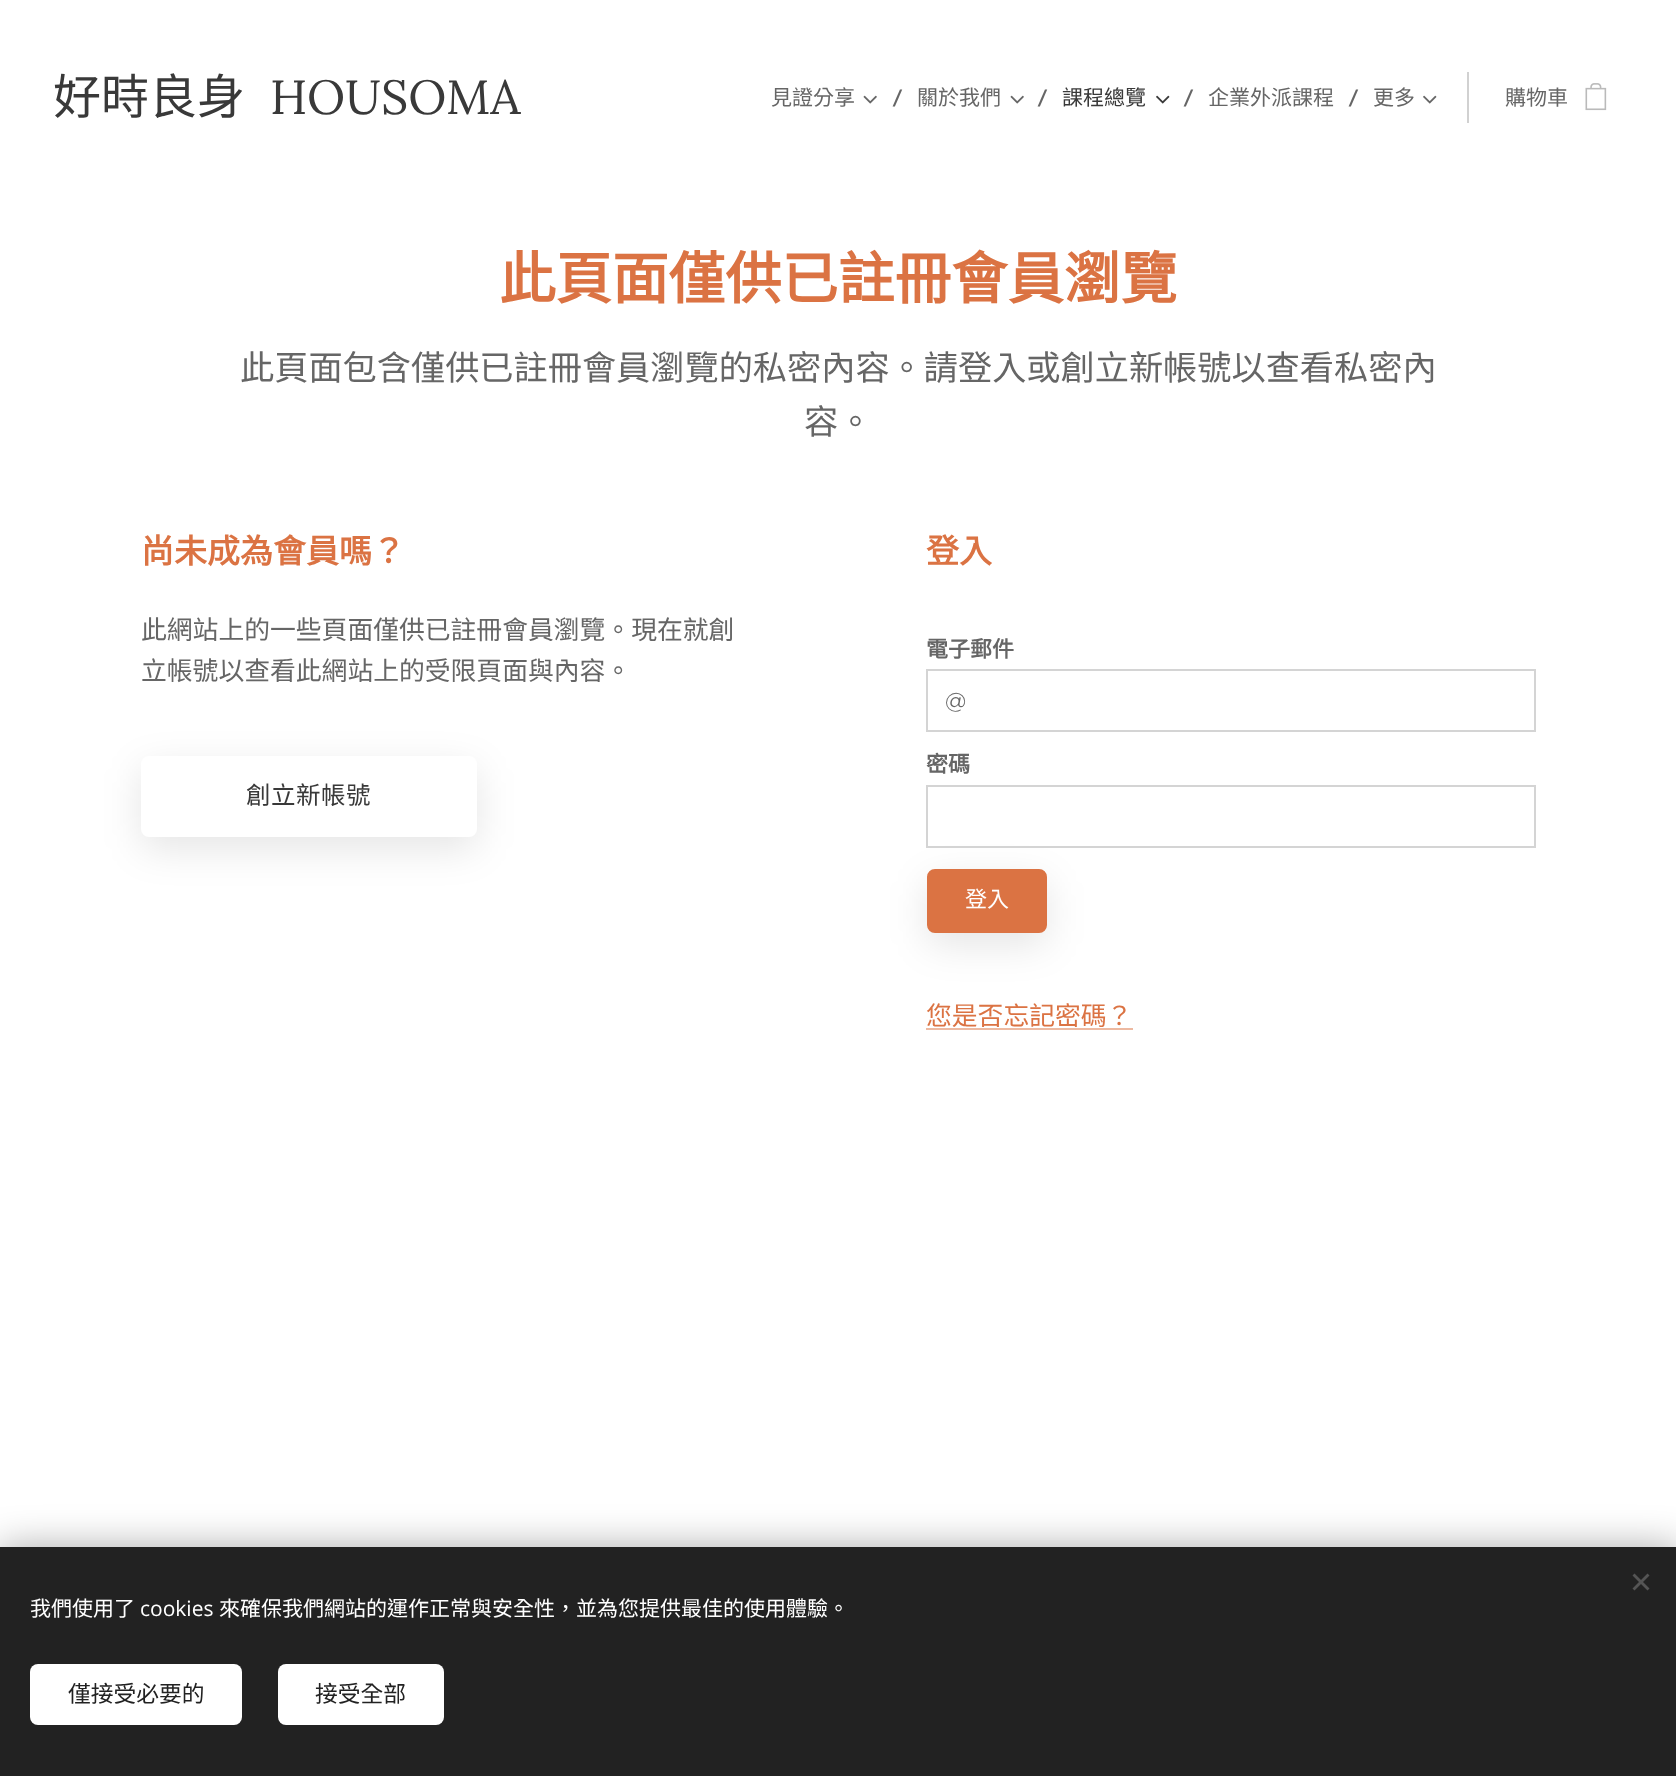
<!DOCTYPE html>
<meta charset="utf-8">
<style>body { margin: 0 } canvas { display: block }</style>
<canvas id="canvas" width="1676" height="1776"></canvas>
<img id="img1" src="img_01.png" hidden>
<img id="img2" src="img_02.png" hidden>
<img id="img3" src="img_03.png" hidden>
<img id="img4" src="img_04.png" hidden>
<script>
window.onload = function () {
	const canvas = document.getElementById("canvas");
	const ctx = canvas.getContext("2d");
	ctx.miterLimit = 4;
	ctx.fontKerning = "normal";
	function txt(s, x, y) {
		ctx.fillText(s, x, y);
	}
	function fill(x, y, w, h) {
		ctx.fillRect(x, y, w, h);
	}
	function round(x, y, w, h, r) {
		ctx.beginPath();
		ctx.roundRect(x, y, w, h, r);
		ctx.fill();
	}
	function img(id, x, y, w, h) {
		ctx.drawImage(document.getElementById(id), x, y, w, h);
	}

	ctx.fillStyle = "#FFFFFF";
	fill(0, 0, 1676, 1776);
	img("img1", 863, 95, 14, 9);
	img("img1", 1010, 95, 14, 9);
	img("img2", 1156, 95, 14, 9);
	img("img3", 1423, 95, 14, 9);
	ctx.fillStyle = "#D1D1D1";
	fill(1467, 72, 2, 51);
	img("img4", 1585, 83, 22, 28);
	ctx.fillStyle = "rgba(0, 0, 0, 0.1)";
	ctx.filter = "blur(19px)";
	ctx.beginPath();
	ctx.roundRect(141, 768, 336, 81, 8);
	ctx.fill();
	ctx.filter = "none";
	ctx.fillStyle = "#FFFFFF";
	round(141, 756, 336, 81, 8);
	ctx.strokeStyle = "#D4D4D4";
	ctx.lineWidth = 2;
	ctx.strokeRect(927, 670, 608, 61);
	ctx.fillStyle = "rgba(0, 0, 0, 0.1)";
	ctx.filter = "blur(19px)";
	ctx.beginPath();
	ctx.roundRect(927, 881, 120, 64, 8);
	ctx.fill();
	ctx.filter = "none";
	ctx.strokeRect(927, 786, 608, 61);
	ctx.fillStyle = "#DB7343";
	ctx.beginPath();
	ctx.roundRect(928, 870, 118, 62, 7);
	ctx.fill();
	ctx.strokeStyle = "#DB7343";
	ctx.stroke();
	ctx.fillStyle = "#EDB9A1";
	fill(926, 1028, 207, 2);
	ctx.fillStyle = "rgba(0, 0, 0, 0.33)";
	ctx.filter = "blur(19px)";
	ctx.beginPath();
	ctx.rect(0, 1547, 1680, 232);
	ctx.fill();
	ctx.filter = "none";
	ctx.fillStyle = "#222222";
	fill(0, 1547, 1676, 229);
	ctx.fillStyle = "#555555";
	ctx.beginPath();
	ctx.moveTo(1632.5, 1588.5);
	ctx.lineTo(1647.5, 1573.5);
	ctx.lineTo(1649.5, 1575.5);
	ctx.lineTo(1634.5, 1590.5);
	ctx.closePath();
	ctx.fill();
	ctx.beginPath();
	ctx.moveTo(1634.5, 1573.5);
	ctx.lineTo(1649.5, 1588.5);
	ctx.lineTo(1647.5, 1590.5);
	ctx.lineTo(1632.5, 1575.5);
	ctx.closePath();
	ctx.fill();
	ctx.fillStyle = "#FFFFFF";
	round(30, 1664, 212, 61, 8);
	round(278, 1664, 166, 61, 8);
	ctx.font = "48px Noto Sans CJK TC";
	ctx.fillStyle = "#393939";
	txt("好時良身", 53, 114);
	ctx.font = "48px Lora";
	txt("HOUSOMA", 270, 114);
	ctx.font = "21px Noto Sans CJK TC";
	ctx.fillStyle = "#666666";
	txt("見證分享", 771, 105);
	ctx.font = "500 21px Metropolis";
	txt("/", 893, 105);
	ctx.font = "21px Noto Sans CJK TC";
	txt("關於我們", 917, 105);
	ctx.font = "500 21px Metropolis";
	txt("/", 1038, 105);
	ctx.font = "21px Noto Sans CJK TC";
	ctx.fillStyle = "#393939";
	txt("課程總覽", 1062, 105);
	ctx.font = "500 21px Metropolis";
	ctx.fillStyle = "#666666";
	txt("/", 1184, 105);
	ctx.font = "21px Noto Sans CJK TC";
	txt("企業外派課程", 1208, 105);
	ctx.font = "500 21px Metropolis";
	txt("/", 1349, 105);
	ctx.font = "21px Noto Sans CJK TC";
	txt("更多", 1373, 105);
	txt("購物車", 1505, 105);
	ctx.font = "bold 56.5px Noto Sans CJK TC";
	ctx.fillStyle = "#DB7343";
	txt("此頁面僅供已註冊會員瀏覽", 499, 299);
	ctx.font = "34.2px Noto Sans CJK TC";
	ctx.fillStyle = "#666666";
	txt("此頁面包含僅供已註冊會員瀏覽的私密內容。請登入或創立新帳號以查看私密內", 240, 380);
	txt("容。", 804, 434);
	ctx.font = "bold 33px Noto Sans CJK TC";
	ctx.fillStyle = "#DB7343";
	txt("尚未成為會員嗎？", 141, 563);
	ctx.font = "25.8px Noto Sans CJK TC";
	ctx.fillStyle = "#666666";
	txt("此網站上的一些頁面僅供已註冊會員瀏覽。現在就創", 141, 639);
	txt("立帳號以查看此網站上的受限頁面與內容。", 141, 680);
	ctx.letterSpacing = "0.5px";
	ctx.font = "24.5px Noto Sans CJK TC";
	ctx.fillStyle = "#393939";
	txt("創立新帳號", 246, 804);
	ctx.letterSpacing = "0px";
	ctx.font = "bold 33px Noto Sans CJK TC";
	ctx.fillStyle = "#DB7343";
	txt("登入", 926, 563);
	ctx.font = "bold 22px Noto Sans CJK TC";
	ctx.fillStyle = "#666666";
	txt("電子郵件", 926, 657);
	ctx.font = "300 24px Metropolis";
	txt("@", 945, 709);
	ctx.font = "bold 22px Noto Sans CJK TC";
	txt("密碼", 926, 772);
	ctx.font = "22px Noto Sans CJK TC";
	ctx.fillStyle = "#FFFFFF";
	txt("登入", 965, 907);
	ctx.font = "25.8px Noto Sans CJK TC";
	ctx.fillStyle = "#DB7343";
	txt("您是否忘記密碼？", 926, 1025);
	ctx.font = "21px Noto Sans CJK TC";
	ctx.fillStyle = "#FFFFFF";
	txt("我們使用了", 30, 1616);
	ctx.font = "21px Open Sans";
	txt("cookies", 140, 1616);
	ctx.font = "21px Noto Sans CJK TC";
	txt("來確保我們網站的運作正常與安全性，並為您提供最佳的使用體驗。", 219, 1616);
	ctx.font = "22.75px Noto Sans CJK TC";
	ctx.fillStyle = "#222222";
	txt("僅接受必要的", 68, 1702);
	txt("接受全部", 315, 1702);
};
</script>
